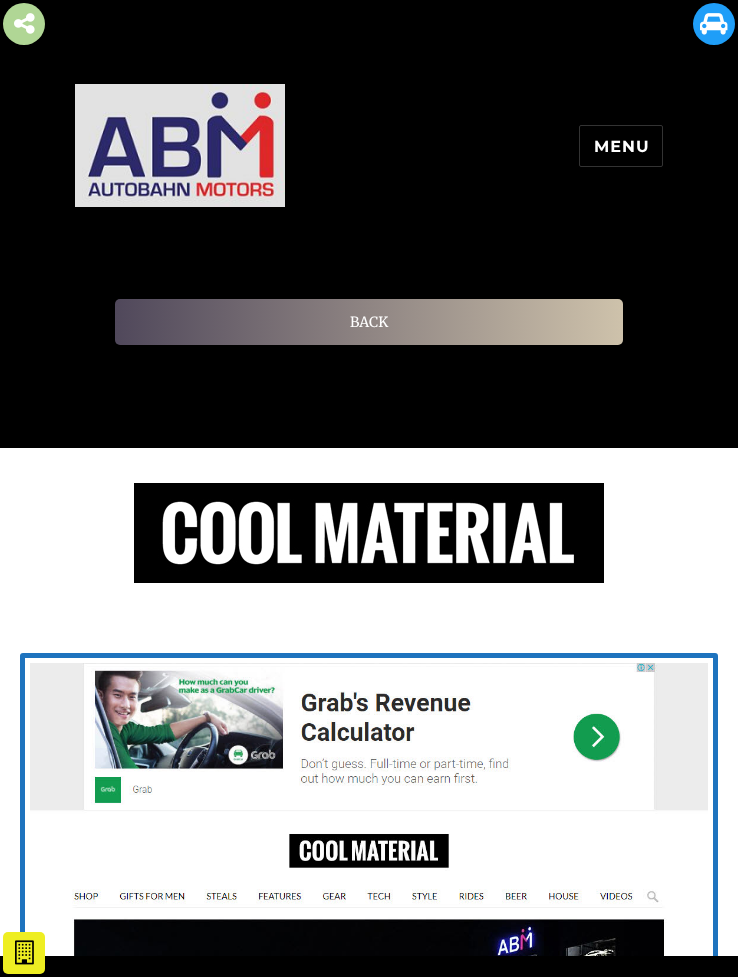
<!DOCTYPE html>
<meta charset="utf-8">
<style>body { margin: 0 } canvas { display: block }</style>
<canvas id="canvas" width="738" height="977"></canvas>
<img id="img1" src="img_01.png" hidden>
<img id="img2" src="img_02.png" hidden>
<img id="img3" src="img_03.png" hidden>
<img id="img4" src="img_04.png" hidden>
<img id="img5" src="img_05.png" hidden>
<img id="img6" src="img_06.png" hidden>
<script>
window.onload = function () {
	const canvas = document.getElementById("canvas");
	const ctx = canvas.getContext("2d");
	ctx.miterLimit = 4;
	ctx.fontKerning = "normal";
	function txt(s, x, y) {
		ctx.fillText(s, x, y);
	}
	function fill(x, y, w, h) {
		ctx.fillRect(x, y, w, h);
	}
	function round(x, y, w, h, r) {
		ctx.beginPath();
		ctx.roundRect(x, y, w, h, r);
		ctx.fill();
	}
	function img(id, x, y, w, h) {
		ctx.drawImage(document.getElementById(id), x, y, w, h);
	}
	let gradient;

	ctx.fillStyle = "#000000";
	fill(0, 0, 738, 977);
	ctx.fillStyle = "#B0D695";
	ctx.beginPath();
	ctx.arc(24, 24, 21, 0, Math.PI * 2);
	ctx.fill();
	img("img1", 14, 13, 21, 21);
	ctx.fillStyle = "#1F9EF8";
	ctx.beginPath();
	ctx.arc(714, 24, 21, 0, Math.PI * 2);
	ctx.fill();
	img("img2", 700, 13, 28, 22);
	img("img3", 75, 84, 210, 123);
	ctx.beginPath();
	ctx.roundRect(579.5, 125.5, 83, 41, 1.5);
	ctx.strokeStyle = "#333333";
	ctx.stroke();
	gradient = ctx.createLinearGradient(115, 322, 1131, 322);
	gradient.addColorStop(0, "#50485B");
	gradient.addColorStop(0.5, "#CEC2AB");
	gradient.addColorStop(1, "#50485B");
	ctx.fillStyle = gradient;
	round(115, 299, 508, 46, 5);
	ctx.fillStyle = "#FFFFFF";
	fill(0, 448, 738, 508);
	img("img4", 134, 483, 470, 100);
	ctx.beginPath();
	ctx.roundRect(22.5, 655.5, 693, 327, 0.5);
	ctx.strokeStyle = "#1E73BE";
	ctx.lineWidth = 5;
	ctx.stroke();
	img("img5", 30, 663, 678, 293);
	ctx.fillStyle = "#000000";
	fill(20, 956, 698, 21);
	ctx.fillStyle = "#EEEE22";
	round(3, 932, 42, 42, 5);
	img("img6", 15, 940, 19, 25);
	ctx.letterSpacing = "1px";
	ctx.font = "bold 16px Montserrat";
	ctx.fillStyle = "#FFFFFF";
	txt("MENU", 594, 152);
	ctx.letterSpacing = "0px";
	ctx.font = "14px Merriweather";
	txt("BACK", 350, 327);
};
</script>
